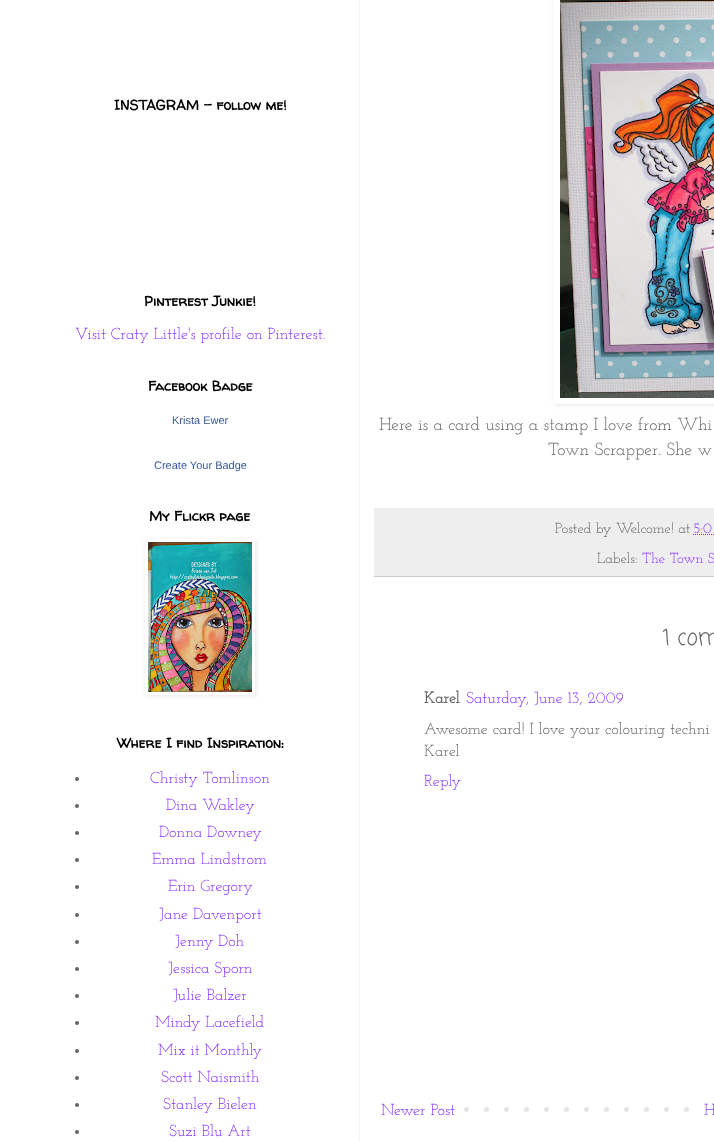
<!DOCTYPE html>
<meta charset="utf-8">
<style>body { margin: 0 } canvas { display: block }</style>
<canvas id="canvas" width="714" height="1142"></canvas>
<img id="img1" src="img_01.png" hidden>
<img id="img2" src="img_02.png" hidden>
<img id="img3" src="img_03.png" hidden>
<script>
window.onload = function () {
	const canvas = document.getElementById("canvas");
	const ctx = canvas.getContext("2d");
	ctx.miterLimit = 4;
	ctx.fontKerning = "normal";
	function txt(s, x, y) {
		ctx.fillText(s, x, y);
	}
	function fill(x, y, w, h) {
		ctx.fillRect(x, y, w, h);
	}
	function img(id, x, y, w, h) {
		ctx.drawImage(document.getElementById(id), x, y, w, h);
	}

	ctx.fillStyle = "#FFFFFF";
	fill(0, 0, 714, 1142);
	ctx.fillStyle = "#F3F3F3";
	fill(359, 0, 1, 1142);
	ctx.save();
	ctx.beginPath();
	ctx.moveTo(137, 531);
	ctx.lineTo(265, 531);
	ctx.lineTo(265, 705);
	ctx.lineTo(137, 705);
	ctx.closePath();
	ctx.moveTo(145, 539);
	ctx.lineTo(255, 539);
	ctx.lineTo(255, 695);
	ctx.lineTo(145, 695);
	ctx.closePath();
	ctx.clip("evenodd");
	ctx.fillStyle = "rgba(0, 0, 0, 0.1)";
	ctx.filter = "blur(2.5px)";
	ctx.beginPath();
	ctx.rect(146, 540, 110, 156);
	ctx.fill();
	ctx.filter = "none";
	ctx.restore();
	img("img1", 148, 542, 104, 150);
	ctx.fillStyle = "#666666";
	ctx.beginPath();
	ctx.arc(77, 779, 2, 0, Math.PI * 2);
	ctx.fill();
	ctx.beginPath();
	ctx.arc(77, 806, 2, 0, Math.PI * 2);
	ctx.fill();
	ctx.beginPath();
	ctx.arc(77, 833, 2, 0, Math.PI * 2);
	ctx.fill();
	ctx.beginPath();
	ctx.arc(77, 860, 2, 0, Math.PI * 2);
	ctx.fill();
	ctx.beginPath();
	ctx.arc(77, 887, 2, 0, Math.PI * 2);
	ctx.fill();
	ctx.beginPath();
	ctx.arc(77, 915, 2, 0, Math.PI * 2);
	ctx.fill();
	ctx.beginPath();
	ctx.arc(77, 942, 2, 0, Math.PI * 2);
	ctx.fill();
	ctx.beginPath();
	ctx.arc(77, 969, 2, 0, Math.PI * 2);
	ctx.fill();
	ctx.beginPath();
	ctx.arc(77, 996, 2, 0, Math.PI * 2);
	ctx.fill();
	ctx.beginPath();
	ctx.arc(77, 1023, 2, 0, Math.PI * 2);
	ctx.fill();
	ctx.beginPath();
	ctx.arc(77, 1051, 2, 0, Math.PI * 2);
	ctx.fill();
	ctx.beginPath();
	ctx.arc(77, 1078, 2, 0, Math.PI * 2);
	ctx.fill();
	ctx.beginPath();
	ctx.arc(77, 1105, 2, 0, Math.PI * 2);
	ctx.fill();
	ctx.beginPath();
	ctx.arc(77, 1132, 2, 0, Math.PI * 2);
	ctx.fill();
	ctx.save();
	ctx.beginPath();
	ctx.moveTo(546, 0);
	ctx.lineTo(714, 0);
	ctx.lineTo(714, 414);
	ctx.lineTo(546, 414);
	ctx.closePath();
	ctx.moveTo(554, -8);
	ctx.lineTo(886, -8);
	ctx.lineTo(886, 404);
	ctx.lineTo(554, 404);
	ctx.closePath();
	ctx.clip("evenodd");
	ctx.fillStyle = "rgba(0, 0, 0, 0.1)";
	ctx.filter = "blur(2.5px)";
	ctx.beginPath();
	ctx.rect(555, -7, 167, 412);
	ctx.fill();
	ctx.filter = "none";
	ctx.restore();
	img("img2", 560, 0, 154, 398);
	ctx.fillStyle = "#EEEEEE";
	fill(374, 508, 340, 68);
	ctx.fillStyle = "#CCCCCC";
	fill(374, 576, 340, 1);
	ctx.beginPath();
	ctx.moveTo(693, 534.5);
	ctx.lineTo(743, 534.5);
	ctx.strokeStyle = "#8832FF";
	ctx.setLineDash([1, 1]);
	ctx.stroke();
	img("img3", 464, 1107, 225, 5);
	ctx.font = "bold 14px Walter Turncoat";
	ctx.fillStyle = "#000000";
	txt("INSTAGRAM - follow me!", 114, 110);
	txt("Pinterest Junkie!", 144, 306);
	ctx.font = "100 16px Josefin Slab";
	ctx.fillStyle = "#8832FF";
	txt("Visit Craty Little's profile on Pinterest.", 75, 339);
	ctx.font = "bold 14px Walter Turncoat";
	ctx.fillStyle = "#000000";
	txt("Facebook Badge", 148, 391);
	ctx.font = "11px Liberation Sans";
	ctx.fillStyle = "#3B5998";
	txt("Krista Ewer", 172, 424);
	txt("Create Your Badge", 154, 469);
	ctx.font = "bold 14px Walter Turncoat";
	ctx.fillStyle = "#000000";
	txt("My Flickr page", 149, 521);
	txt("Where I find Inspiration:", 117, 748);
	ctx.font = "100 16px Josefin Slab";
	ctx.fillStyle = "#8832FF";
	txt("Christy Tomlinson", 150, 783);
	txt("Dina Wakley", 166, 810);
	txt("Donna Downey", 159, 837);
	txt("Emma Lindstrom", 152, 864);
	txt("Erin Gregory", 168, 891);
	txt("Jane Davenport", 159, 919);
	txt("Jenny Doh", 175, 946);
	txt("Jessica Sporn", 168, 973);
	txt("Julie Balzer", 173, 1000);
	txt("Mindy Lacefield", 155, 1027);
	txt("Mix it Monthly", 158, 1055);
	txt("Scott Naismith", 161, 1082);
	txt("Stanley Bielen", 163, 1109);
	txt("Suzi Blu Art", 169, 1136);
	ctx.font = "100 17.6px Josefin Slab";
	ctx.fillStyle = "#666666";
	txt("Here is a card using a stamp I love from Whi", 379, 430);
	txt("Town Scrapper. She w", 548, 455);
	ctx.font = "100 14.5px Josefin Slab";
	txt("Posted by Welcome! at", 555, 533);
	ctx.fillStyle = "#8832FF";
	txt("5:0", 693, 533);
	ctx.fillStyle = "#666666";
	txt("Labels:", 597, 563);
	ctx.fillStyle = "#8832FF";
	txt("The Town S", 642, 563);
	ctx.font = "22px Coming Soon";
	ctx.fillStyle = "#666666";
	txt("1 com", 663, 645);
	ctx.font = "bold 16px Josefin Slab";
	txt("Karel", 424, 703);
	ctx.font = "100 16px Josefin Slab";
	ctx.fillStyle = "#8832FF";
	txt("Saturday, June 13, 2009", 466, 703);
	ctx.fillStyle = "#666666";
	txt("Awesome card! I love your colouring techni", 424, 734);
	txt("Karel", 424, 756);
	ctx.fillStyle = "#8832FF";
	txt("Reply", 424, 786);
	txt("Newer Post", 381, 1115);
	txt("H", 704, 1115);
};
</script>
